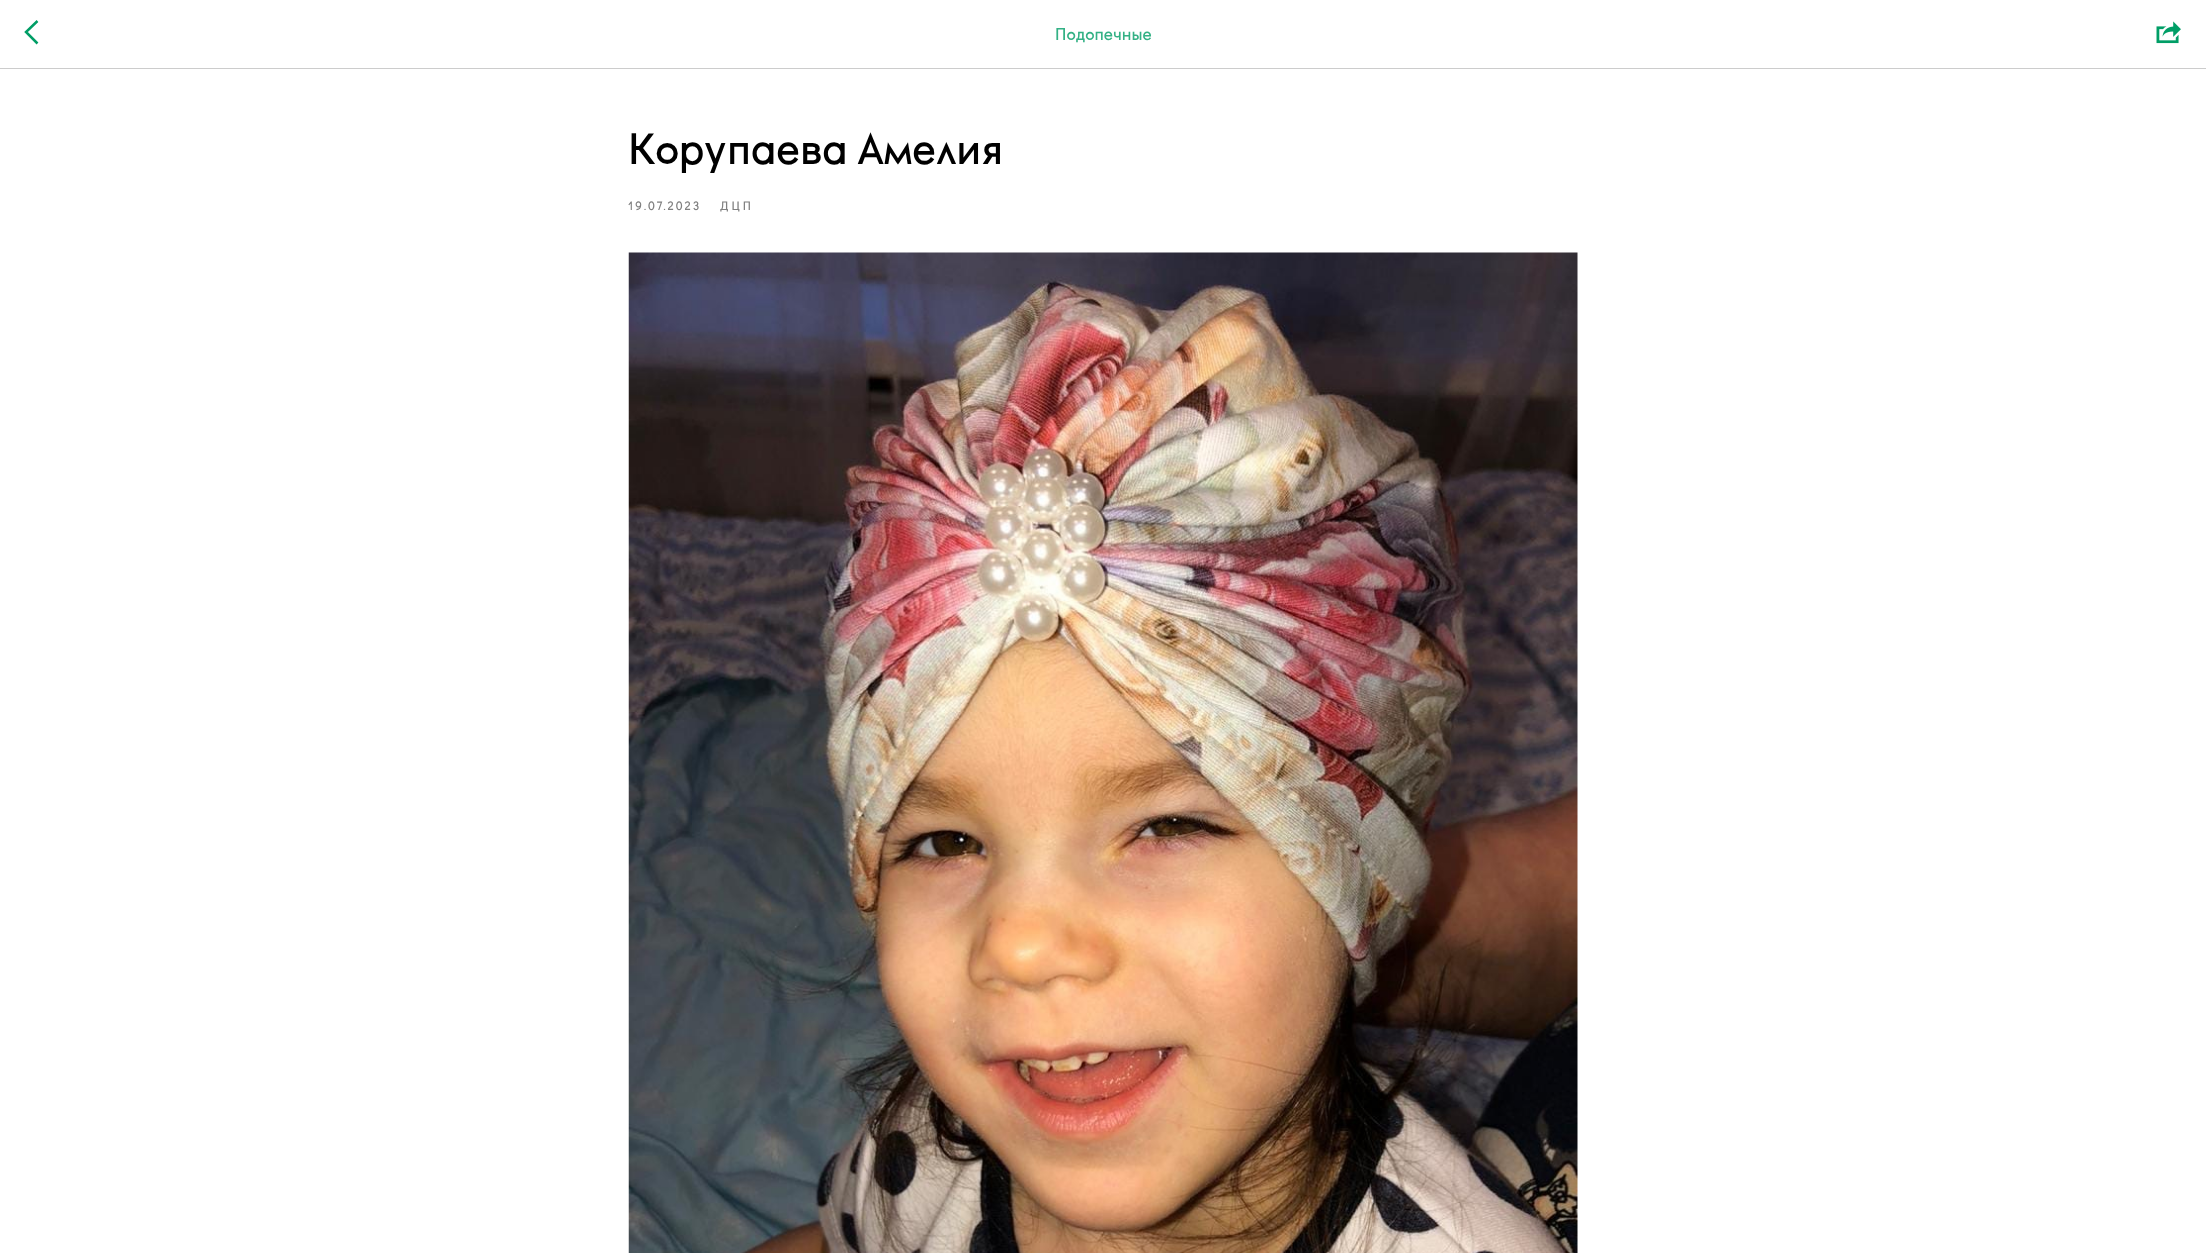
<!DOCTYPE html>
<meta charset="utf-8">
<style>body { margin: 0 } canvas { display: block }</style>
<canvas id="canvas" width="2206" height="1253"></canvas>
<img id="img1" src="img_01.png" hidden>
<img id="img2" src="img_02.png" hidden>
<script>
window.onload = function () {
	const canvas = document.getElementById("canvas");
	const ctx = canvas.getContext("2d");
	ctx.miterLimit = 4;
	ctx.fontKerning = "normal";
	function txt(s, x, y) {
		ctx.fillText(s, x, y);
	}
	function fill(x, y, w, h) {
		ctx.fillRect(x, y, w, h);
	}
	function img(id, x, y, w, h) {
		ctx.drawImage(document.getElementById(id), x, y, w, h);
	}

	ctx.fillStyle = "#FFFFFF";
	fill(0, 0, 2206, 1253);
	ctx.fillStyle = "#CCCCCC";
	fill(0, 68, 2206, 1);
	ctx.beginPath();
	ctx.moveTo(37.5, 43.5);
	ctx.lineTo(26, 32);
	ctx.lineTo(37.5, 21);
	ctx.strokeStyle = "#009E66";
	ctx.lineWidth = 2.5;
	ctx.stroke();
	img("img1", 2156, 21, 25, 23);
	img("img2", 628, 252, 950, 1001);
	ctx.font = "bold 17.5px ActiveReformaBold";
	ctx.fillStyle = "#33B185";
	txt("Подопечные", 1055, 40);
	ctx.font = "bold 45px ActiveReformaBold";
	ctx.fillStyle = "#000000";
	txt("Корупаева Амелия", 628, 164);
	ctx.letterSpacing = "1.9px";
	ctx.font = "bold 12.5px ActiveReformaBold";
	ctx.fillStyle = "#808080";
	txt("19.07.2023", 628, 210);
	ctx.letterSpacing = "3px";
	txt("ДЦП", 720, 210);
};
</script>
